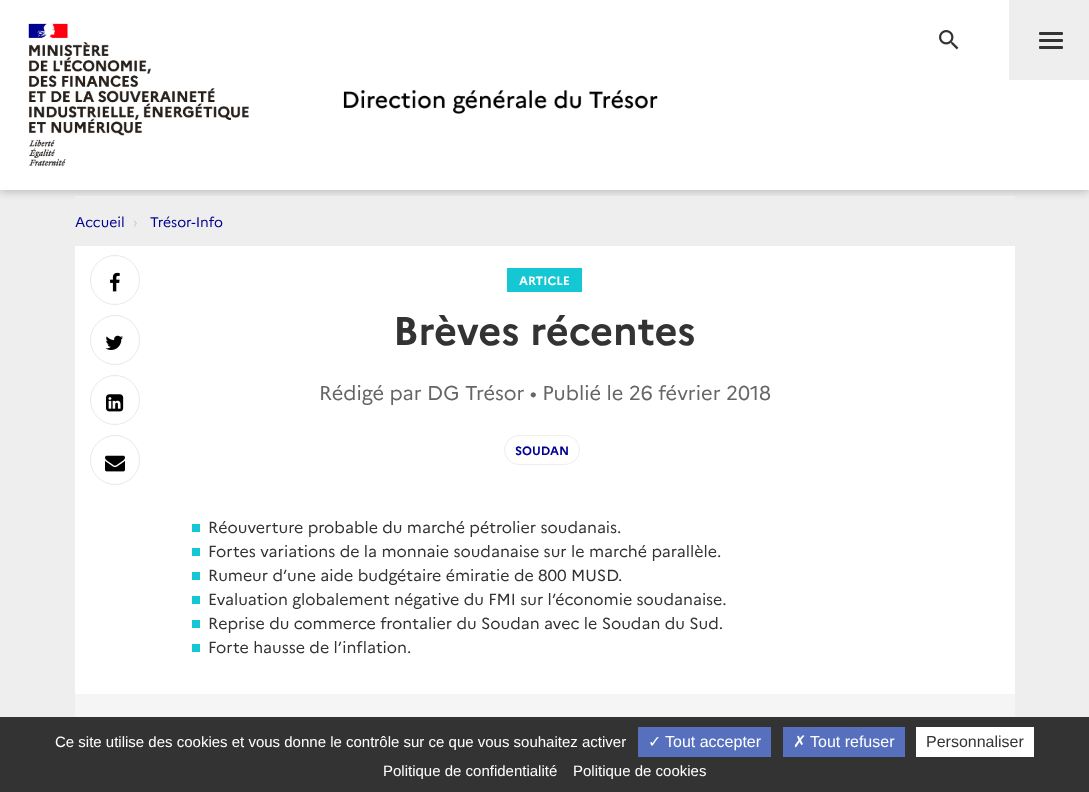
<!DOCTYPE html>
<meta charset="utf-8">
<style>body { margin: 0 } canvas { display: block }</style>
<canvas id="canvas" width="1089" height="792"></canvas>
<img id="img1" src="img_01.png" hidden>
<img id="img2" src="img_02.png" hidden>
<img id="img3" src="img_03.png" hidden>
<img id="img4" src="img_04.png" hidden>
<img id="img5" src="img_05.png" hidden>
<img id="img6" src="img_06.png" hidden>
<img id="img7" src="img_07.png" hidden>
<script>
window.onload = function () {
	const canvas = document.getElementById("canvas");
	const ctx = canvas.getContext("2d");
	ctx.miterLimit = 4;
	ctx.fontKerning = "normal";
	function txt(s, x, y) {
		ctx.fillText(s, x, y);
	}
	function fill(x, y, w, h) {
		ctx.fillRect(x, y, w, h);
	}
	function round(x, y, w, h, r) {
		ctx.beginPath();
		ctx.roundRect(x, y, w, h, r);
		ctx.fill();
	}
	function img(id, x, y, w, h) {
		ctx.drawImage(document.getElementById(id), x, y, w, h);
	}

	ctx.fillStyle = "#EEEEEE";
	fill(0, 0, 1089, 792);
	ctx.fillStyle = "rgba(0, 0, 0, 0.25)";
	ctx.filter = "blur(5px)";
	ctx.beginPath();
	ctx.rect(0, 0, 1089, 191);
	ctx.fill();
	ctx.filter = "none";
	ctx.fillStyle = "#FFFFFF";
	fill(0, 0, 1089, 190);
	img("img1", 28, 23, 221, 143);
	img("img2", 343, 90, 315, 24);
	img("img3", 939, 30, 20, 20);
	ctx.fillStyle = "#EEEEEE";
	fill(1009, 0, 80, 80);
	ctx.fillStyle = "#333333";
	round(1039, 32, 24, 3, 1);
	round(1039, 39, 24, 3, 1);
	round(1039, 46, 24, 3, 1);
	ctx.fillStyle = "#EEEEEE";
	fill(75, 196, 940, 4);
	ctx.fillStyle = "#FFFFFF";
	fill(75, 246, 940, 448);
	ctx.beginPath();
	ctx.arc(115, 280, 24.5, 0, Math.PI * 2);
	ctx.strokeStyle = "#EAE8EA";
	ctx.stroke();
	img("img4", 110, 272, 10, 20);
	ctx.beginPath();
	ctx.arc(115, 340, 24.5, 0, Math.PI * 2);
	ctx.stroke();
	img("img5", 105, 335, 18, 15);
	ctx.beginPath();
	ctx.arc(115, 400, 24.5, 0, Math.PI * 2);
	ctx.stroke();
	img("img6", 106, 394, 18, 18);
	ctx.beginPath();
	ctx.arc(115, 460, 24.5, 0, Math.PI * 2);
	ctx.stroke();
	img("img7", 105, 455, 20, 17);
	ctx.fillStyle = "#15C7D2";
	fill(507, 268, 75, 24);
	ctx.beginPath();
	ctx.roundRect(504.5, 435.5, 75, 29, 14.5);
	ctx.strokeStyle = "#EEEEEE";
	ctx.stroke();
	fill(192, 524, 8, 8);
	fill(192, 548, 8, 8);
	fill(192, 572, 8, 8);
	fill(192, 596, 8, 8);
	fill(192, 620, 8, 8);
	fill(192, 644, 8, 8);
	ctx.fillStyle = "#F5F5F5";
	fill(75, 694, 940, 23);
	ctx.fillStyle = "#333333";
	fill(0, 717, 1089, 75);
	ctx.fillStyle = "#5770BE";
	fill(638, 727, 133, 30);
	fill(783, 727, 122, 30);
	ctx.fillStyle = "#FFFFFF";
	fill(916, 727, 118, 30);
	ctx.font = "14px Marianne";
	ctx.fillStyle = "#000091";
	txt("Accueil", 75, 227);
	ctx.fillStyle = "#CCCCCC";
	txt("›", 133, 227);
	ctx.fillStyle = "#000091";
	txt("Trésor-Info", 150, 227);
	ctx.font = "bold 12px Marianne";
	ctx.fillStyle = "#FFFFFF";
	txt("ARTICLE", 519, 285);
	ctx.font = "bold 40px Marianne";
	ctx.fillStyle = "#333333";
	txt("Brèves récentes", 393, 345);
	ctx.font = "20px Marianne";
	ctx.fillStyle = "#666666";
	txt("Rédigé par DG Trésor • Publié le 26 février 2018", 319, 400);
	ctx.font = "bold 12px Marianne";
	ctx.fillStyle = "#000091";
	txt("SOUDAN", 515, 455);
	ctx.font = "16px Marianne";
	ctx.fillStyle = "#333333";
	txt("Réouverture probable du marché pétrolier soudanais.", 208, 533);
	txt("Fortes variations de la monnaie soudanaise sur le marché parallèle.", 208, 557);
	txt("Rumeur d’une aide budgétaire émiratie de 800 MUSD.", 208, 581);
	txt("Evaluation globalement négative du FMI sur l’économie soudanaise.", 208, 605);
	txt("Reprise du commerce frontalier du Soudan avec le Soudan du Sud.", 208, 629);
	txt("Forte hausse de l’inflation.", 208, 653);
	ctx.font = "15px Liberation Sans";
	ctx.fillStyle = "#FFFFFF";
	txt("Ce site utilise des cookies et vous donne le contrôle sur ce que vous souhaitez activer", 55, 747);
	ctx.font = "16px DejaVu Sans";
	txt("✓", 648, 747);
	ctx.font = "16px Liberation Sans";
	txt("Tout accepter", 665, 747);
	ctx.font = "16px DejaVu Sans";
	txt("✗", 793, 747);
	ctx.font = "16px Liberation Sans";
	txt("Tout refuser", 810, 747);
	ctx.fillStyle = "#333333";
	txt("Personnaliser", 926, 747);
	ctx.font = "15px Liberation Sans";
	ctx.fillStyle = "#FFFFFF";
	txt("Politique de confidentialité", 383, 776);
	txt("Politique de cookies", 573, 776);
};
</script>
